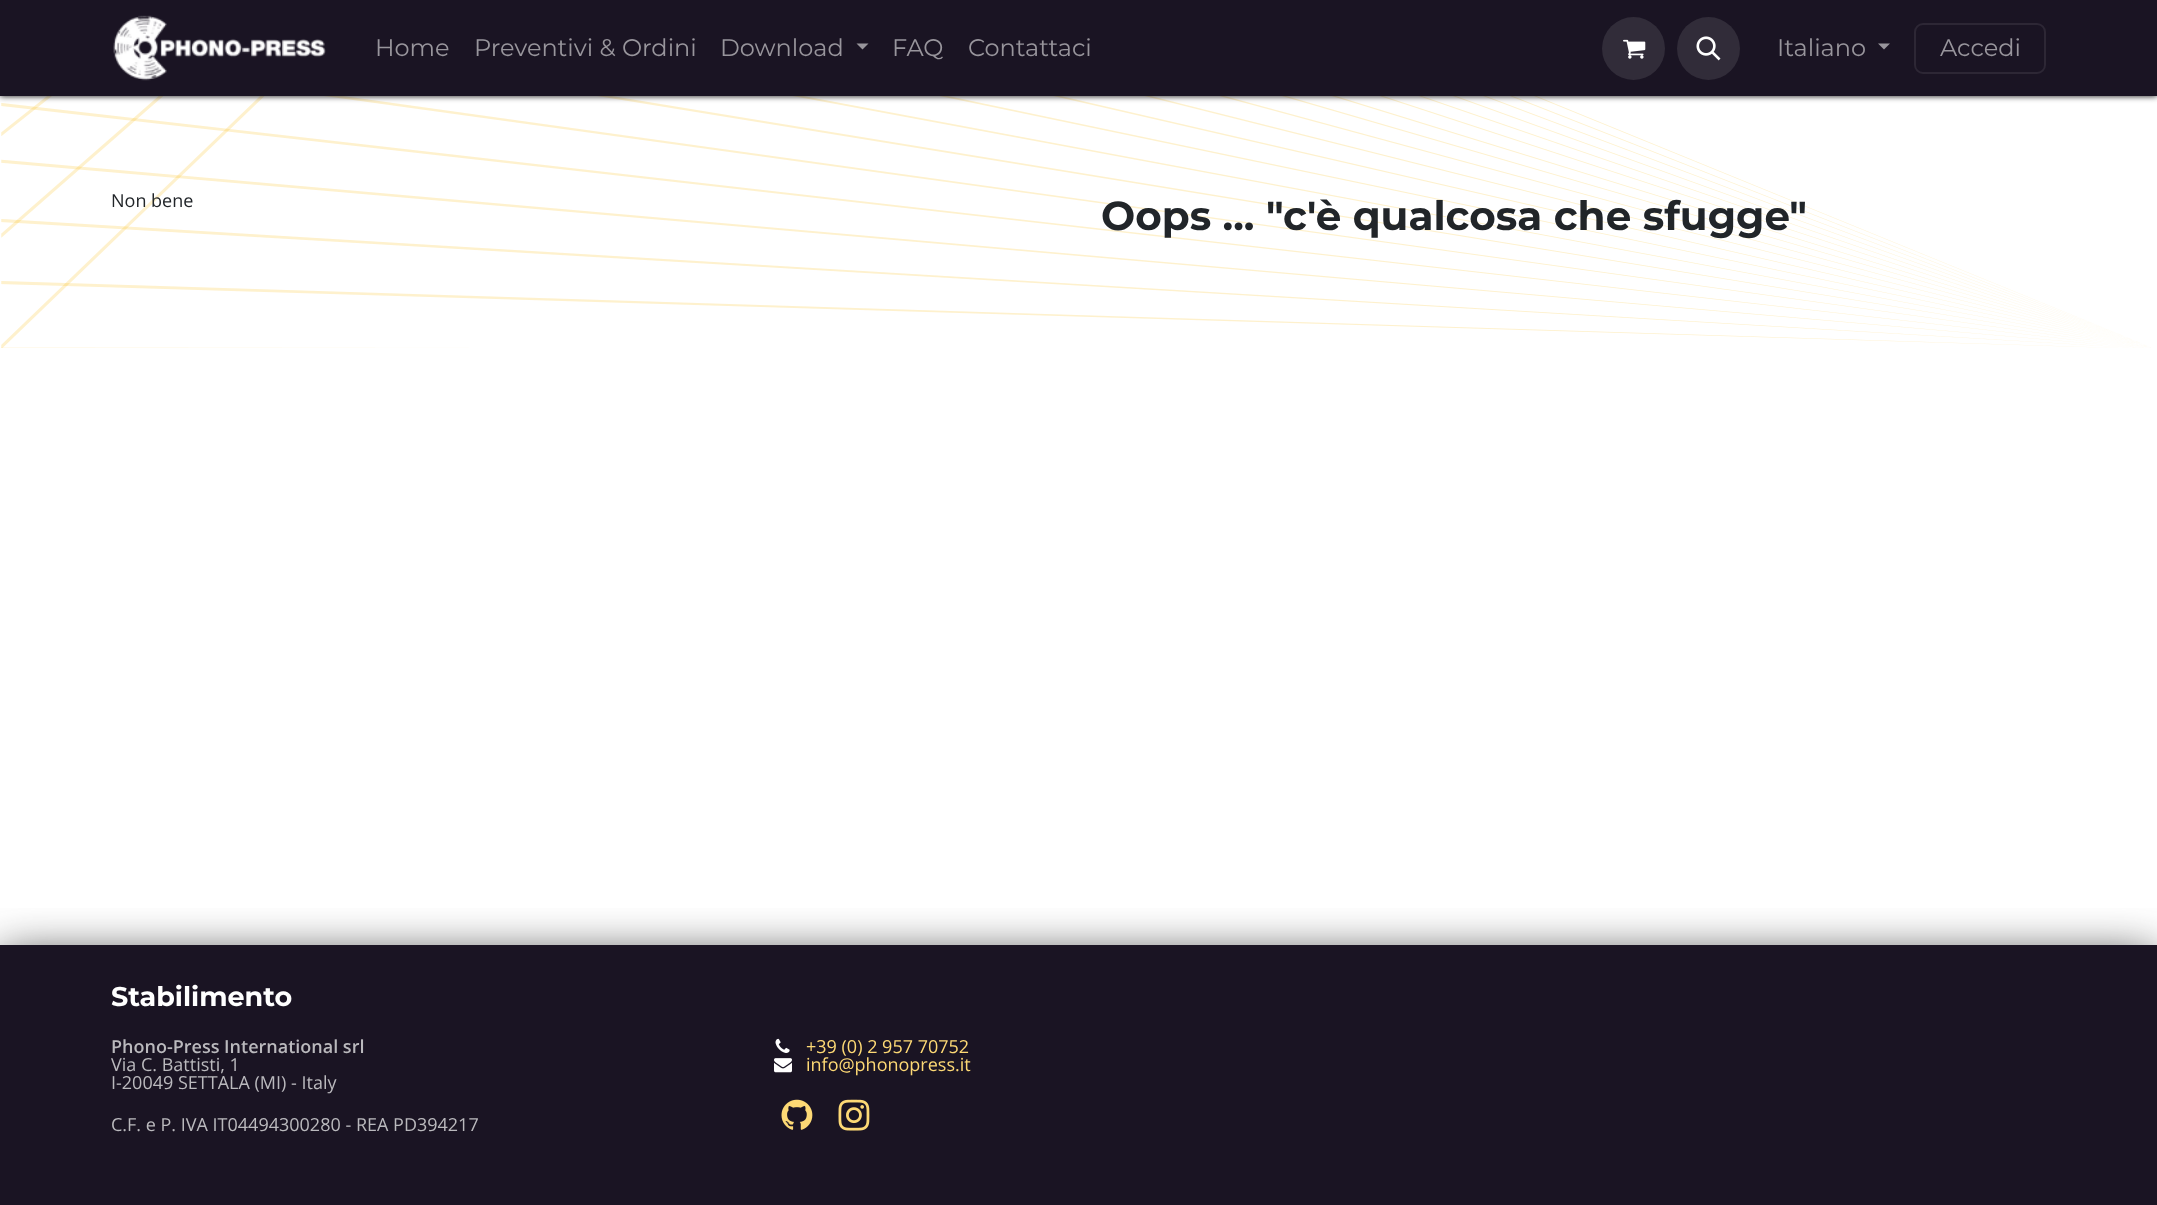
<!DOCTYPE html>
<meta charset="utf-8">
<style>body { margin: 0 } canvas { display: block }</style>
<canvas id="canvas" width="2157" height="1205"></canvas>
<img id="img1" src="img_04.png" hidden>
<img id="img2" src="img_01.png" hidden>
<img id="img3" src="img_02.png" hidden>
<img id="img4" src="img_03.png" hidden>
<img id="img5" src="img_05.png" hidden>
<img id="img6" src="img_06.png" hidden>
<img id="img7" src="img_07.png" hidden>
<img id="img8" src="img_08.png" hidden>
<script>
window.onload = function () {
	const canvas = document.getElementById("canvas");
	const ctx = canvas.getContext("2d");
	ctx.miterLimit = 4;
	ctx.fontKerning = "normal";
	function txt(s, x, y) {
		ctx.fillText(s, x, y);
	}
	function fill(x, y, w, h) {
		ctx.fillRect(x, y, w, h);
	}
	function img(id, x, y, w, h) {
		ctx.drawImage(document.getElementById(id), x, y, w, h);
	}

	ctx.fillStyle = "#FFFFFF";
	fill(0, 0, 2157, 1205);
	img("img1", 1, 96, 2150, 252);
	ctx.fillStyle = "#0D0D0D";
	ctx.filter = "blur(3px)";
	ctx.beginPath();
	ctx.rect(0, 0, 2157, 96);
	ctx.fill();
	ctx.filter = "none";
	ctx.fillStyle = "#1A1423";
	fill(0, 0, 2157, 96);
	img("img2", 113, 15, 213, 66);
	ctx.fillStyle = "#98959C";
	ctx.beginPath();
	ctx.moveTo(856.5, 43.5);
	ctx.lineTo(868.5, 43.5);
	ctx.lineTo(862.5, 49.5);
	ctx.closePath();
	ctx.fill();
	ctx.fillStyle = "#312C39";
	ctx.beginPath();
	ctx.arc(1633.5, 48.5, 31.5, 0, Math.PI * 2);
	ctx.fill();
	img("img3", 1623, 39, 23, 20);
	ctx.beginPath();
	ctx.arc(1708.5, 48.5, 31.5, 0, Math.PI * 2);
	ctx.fill();
	img("img4", 1696, 36, 25, 25);
	ctx.fillStyle = "#98959C";
	ctx.beginPath();
	ctx.moveTo(1878, 43.5);
	ctx.lineTo(1890, 43.5);
	ctx.lineTo(1884, 49.5);
	ctx.closePath();
	ctx.fill();
	ctx.beginPath();
	ctx.roundRect(1915, 24, 130, 49, 8);
	ctx.strokeStyle = "#2D2735";
	ctx.lineWidth = 2;
	ctx.stroke();
	ctx.fillStyle = "#1A1423";
	fill(0, 945, 2157, 260);
	ctx.save();
	ctx.beginPath();
	ctx.rect(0, 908, 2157, 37);
	ctx.clip();
	ctx.fillStyle = "#262626";
	ctx.filter = "blur(24px)";
	ctx.beginPath();
	ctx.rect(0, 957, 2157, 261);
	ctx.fill();
	ctx.filter = "none";
	ctx.restore();
	img("img5", 775, 1038, 15, 15);
	img("img6", 774, 1058, 18, 15);
	img("img7", 781, 1099, 32, 31);
	img("img8", 838, 1099, 32, 32);
	ctx.font = "24px Montserrat";
	ctx.fillStyle = "#98959C";
	txt("Home", 375, 56);
	txt("Preventivi & Ordini", 474, 56);
	txt("Download", 720, 56);
	txt("FAQ", 892, 56);
	txt("Contattaci", 968, 56);
	txt("Italiano", 1777, 56);
	txt("Accedi", 1940, 56);
	ctx.font = "18px Open Sans";
	ctx.fillStyle = "#212529";
	txt("Non bene", 111, 207);
	ctx.font = "bold 40.5px Montserrat";
	txt("Oops ... \"c'è qualcosa che sfugge\"", 1101, 230);
	ctx.font = "bold 27px Montserrat";
	ctx.fillStyle = "#FFFFFF";
	txt("Stabilimento", 111, 1006);
	ctx.font = "600 18px Open Sans";
	ctx.fillStyle = "#BAB9BD";
	txt("Phono-Press International srl", 111, 1053);
	ctx.font = "18px Open Sans";
	txt("Via C. Battisti, 1", 111, 1071);
	txt("I-20049 SETTALA (MI) - Italy", 111, 1089);
	txt("C.F. e P. IVA IT04494300280 - REA PD394217", 111, 1131);
	ctx.fillStyle = "#FDD975";
	txt("+39 (0) 2 957 70752", 806, 1053);
	txt("info@phonopress.it", 806, 1071);
};
</script>
